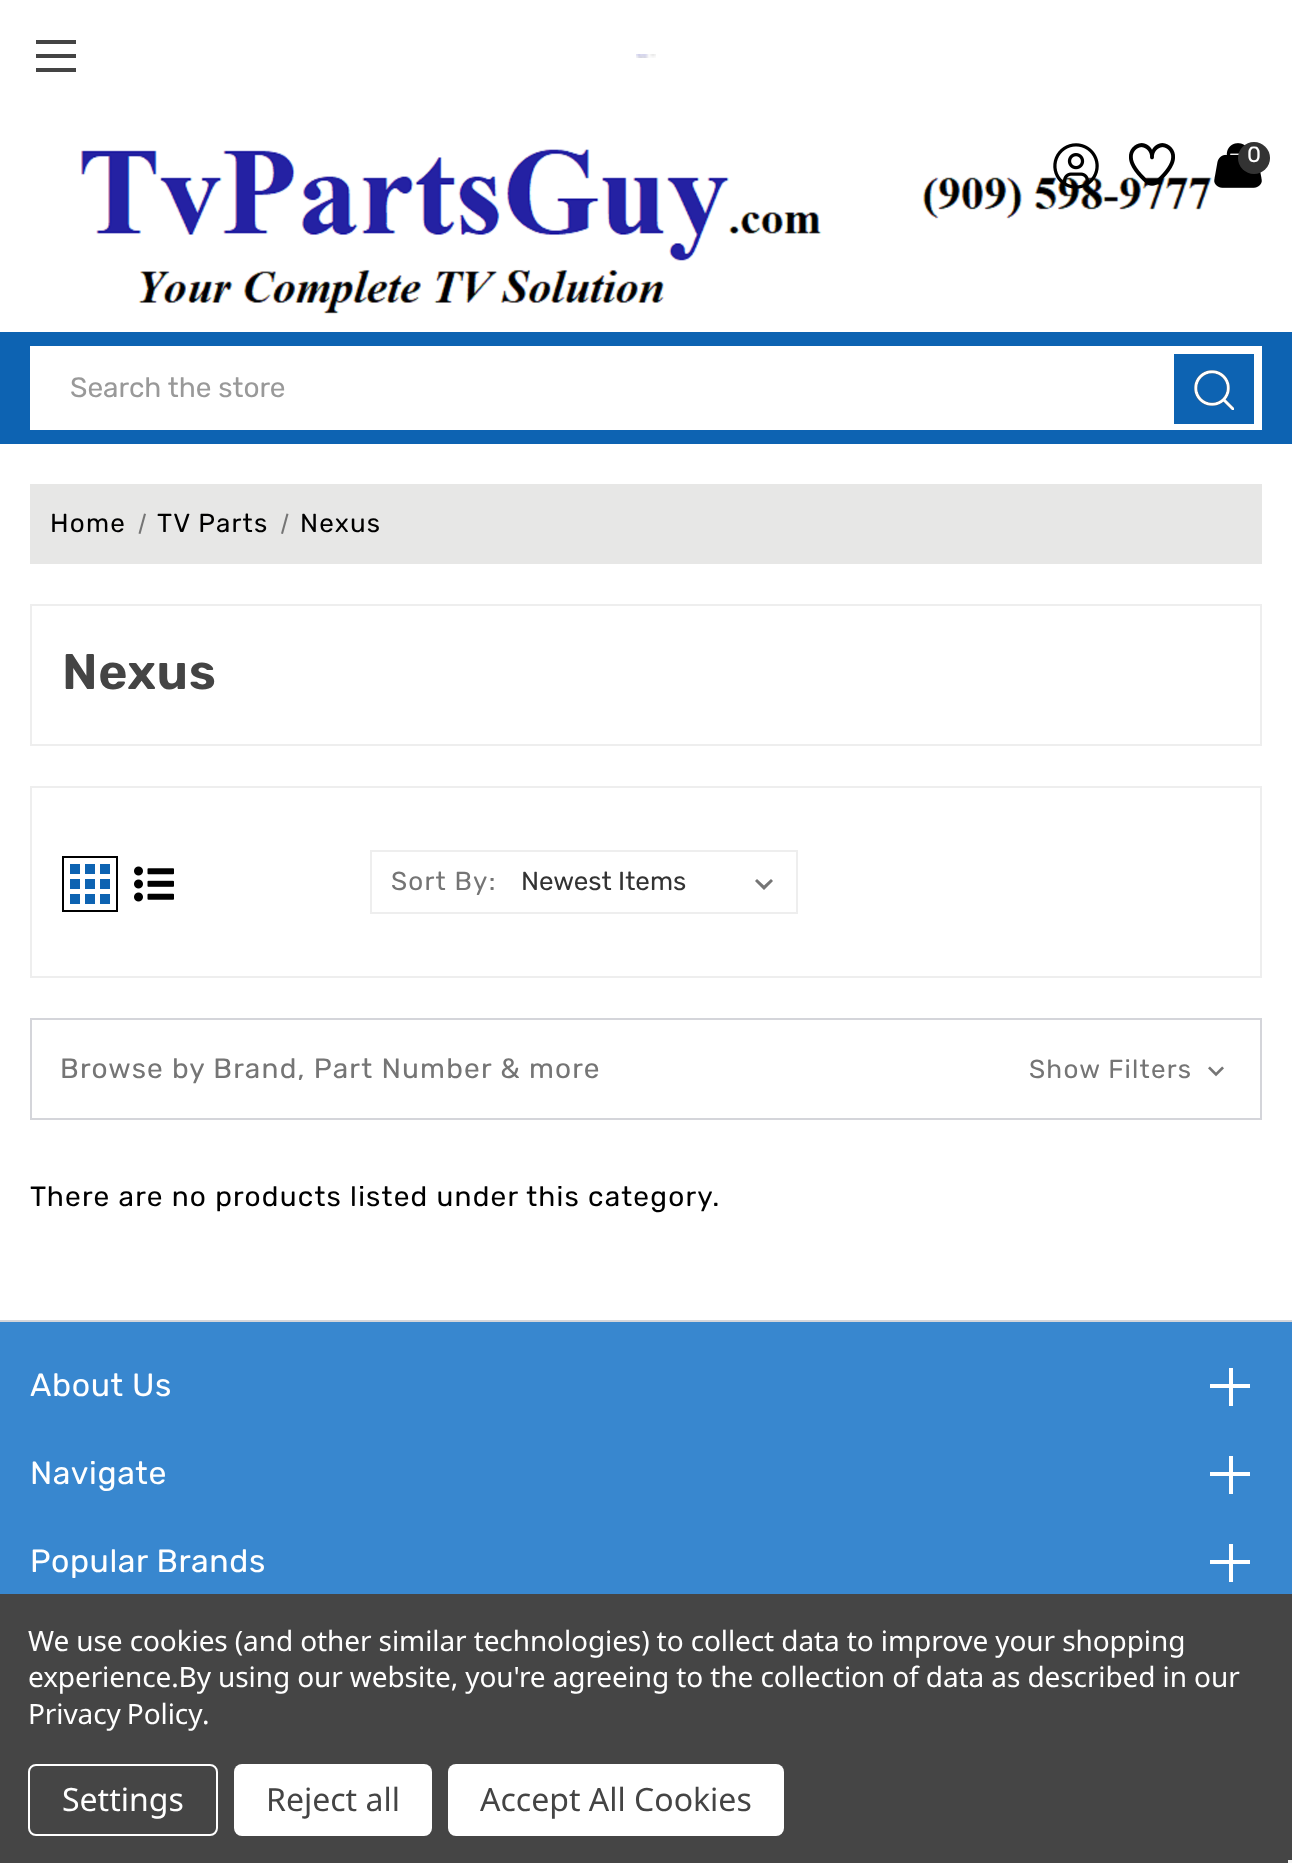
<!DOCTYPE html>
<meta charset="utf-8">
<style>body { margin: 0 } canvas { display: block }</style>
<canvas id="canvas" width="1292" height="1863"></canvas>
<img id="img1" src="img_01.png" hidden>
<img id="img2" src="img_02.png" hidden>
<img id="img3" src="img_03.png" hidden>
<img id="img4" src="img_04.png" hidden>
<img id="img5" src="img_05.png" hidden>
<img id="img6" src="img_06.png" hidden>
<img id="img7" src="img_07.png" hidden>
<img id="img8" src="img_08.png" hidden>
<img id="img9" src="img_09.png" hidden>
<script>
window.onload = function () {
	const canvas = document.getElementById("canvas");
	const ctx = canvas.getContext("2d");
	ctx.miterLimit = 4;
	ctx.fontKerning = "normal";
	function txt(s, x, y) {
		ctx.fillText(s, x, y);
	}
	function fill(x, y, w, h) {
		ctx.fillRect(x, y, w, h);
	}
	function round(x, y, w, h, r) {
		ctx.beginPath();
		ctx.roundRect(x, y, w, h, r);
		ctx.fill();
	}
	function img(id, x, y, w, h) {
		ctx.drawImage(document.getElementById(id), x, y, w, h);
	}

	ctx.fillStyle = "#FFFFFF";
	fill(0, 0, 1292, 1863);
	ctx.fillStyle = "#444444";
	fill(36, 54, 40, 4);
	fill(36, 40, 40, 4);
	fill(36, 68, 40, 4);
	img("img1", 636, 54, 20, 4);
	img("img2", 81, 149, 1131, 165);
	img("img3", 1053, 143, 46, 46);
	img("img4", 1129, 143, 46, 43);
	img("img5", 1214, 143, 48, 45);
	ctx.fillStyle = "#333333";
	ctx.beginPath();
	ctx.arc(1254, 158, 16, 0, Math.PI * 2);
	ctx.fill();
	ctx.fillStyle = "#0D63B2";
	fill(0, 332, 1292, 112);
	ctx.fillStyle = "#FFFFFF";
	fill(30, 346, 1232, 84);
	ctx.fillStyle = "#0D63B2";
	fill(1174, 354, 80, 70);
	img("img6", 1194, 370, 40, 40);
	ctx.fillStyle = "#E7E7E6";
	fill(30, 484, 1232, 80);
	ctx.fillStyle = "#757575";
	ctx.beginPath();
	ctx.moveTo(144, 513.5);
	ctx.lineTo(146, 514);
	ctx.lineTo(140.5, 534);
	ctx.lineTo(138.5, 533.5);
	ctx.closePath();
	ctx.fill();
	ctx.beginPath();
	ctx.moveTo(286.5, 513.5);
	ctx.lineTo(288.5, 514);
	ctx.lineTo(283, 534);
	ctx.lineTo(281, 533.5);
	ctx.closePath();
	ctx.fill();
	ctx.strokeStyle = "#EEEEEE";
	ctx.lineWidth = 2;
	ctx.strokeRect(31, 605, 1230, 140);
	ctx.strokeRect(31, 787, 1230, 190);
	ctx.strokeStyle = "#000000";
	ctx.strokeRect(63, 857, 54, 54);
	img("img7", 70, 864, 40, 40);
	img("img8", 134, 866, 40, 36);
	ctx.strokeStyle = "#EEEEEE";
	ctx.strokeRect(371, 851, 426, 62);
	ctx.beginPath();
	ctx.moveTo(771, 879);
	ctx.lineTo(764, 885.5);
	ctx.lineTo(757, 879);
	ctx.lineTo(755, 881);
	ctx.lineTo(764, 890);
	ctx.lineTo(773, 881);
	ctx.closePath();
	ctx.fill();
	ctx.strokeStyle = "#D4D5DA";
	ctx.strokeRect(31, 1019, 1230, 100);
	img("img9", 1208, 1066, 16, 11);
	ctx.fillStyle = "#3887CF";
	fill(0, 1322, 1292, 272);
	ctx.fillStyle = "#D4D5DA";
	fill(0, 1320, 1292, 2);
	ctx.fillStyle = "#FFFFFF";
	fill(1210, 1384, 40, 4);
	fill(1229, 1368, 4, 38);
	fill(1210, 1472, 40, 4);
	fill(1229, 1456, 4, 38);
	fill(1210, 1560, 40, 4);
	fill(1229, 1544, 4, 38);
	ctx.fillStyle = "#454545";
	fill(0, 1594, 1292, 269);
	ctx.beginPath();
	ctx.roundRect(29, 1765, 188, 70, 7);
	ctx.strokeStyle = "#FFFFFF";
	ctx.stroke();
	ctx.fillStyle = "#FFFFFF";
	round(234, 1764, 198, 72, 8);
	round(448, 1764, 336, 72, 8);
	ctx.fillStyle = "#F5F5F5";
	fill(1288, 1860, 4, 3);
	ctx.font = "22px Rubik";
	ctx.fillStyle = "#FFFFFF";
	txt("0", 1247, 162);
	ctx.font = "28px Rubik";
	ctx.fillStyle = "#999999";
	txt("Search the store", 70, 397);
	ctx.letterSpacing = "1.2px";
	ctx.font = "26px Rubik";
	ctx.fillStyle = "#000000";
	txt("Home", 50, 532);
	txt("TV Parts", 157, 532);
	txt("Nexus", 300, 532);
	ctx.letterSpacing = "0.6px";
	ctx.font = "600 50px Rubik";
	ctx.fillStyle = "#444444";
	txt("Nexus", 62, 689);
	ctx.letterSpacing = "1.2px";
	ctx.font = "26px Rubik";
	ctx.fillStyle = "#757575";
	txt("Sort By:", 391, 890);
	ctx.letterSpacing = "0px";
	ctx.fillStyle = "#333333";
	txt("Newest Items", 521, 890);
	ctx.letterSpacing = "1.2px";
	ctx.font = "28px Rubik";
	ctx.fillStyle = "#757575";
	txt("Browse by Brand, Part Number & more", 60, 1078);
	ctx.font = "26px Rubik";
	txt("Show Filters", 1029, 1078);
	ctx.font = "28px Rubik";
	ctx.fillStyle = "#000000";
	txt("There are no products listed under this category.", 30, 1206);
	ctx.letterSpacing = "0.6px";
	ctx.font = "32px Rubik";
	ctx.fillStyle = "#FFFFFF";
	txt("About Us", 30, 1396);
	txt("Navigate", 30, 1484);
	txt("Popular Brands", 30, 1572);
	ctx.letterSpacing = "-0.1px";
	ctx.font = "28px Noto Sans";
	txt("We use cookies (and other similar technologies) to collect data to improve your shopping", 28, 1651);
	txt("experience.By using our website, you're agreeing to the collection of data as described in our", 28, 1687);
	ctx.wordSpacing = "-1px";
	txt("Privacy Policy", 28, 1724);
	ctx.wordSpacing = "0px";
	txt(".", 202, 1724);
	ctx.letterSpacing = "0px";
	ctx.font = "32px Noto Sans";
	txt("Settings", 62, 1811);
	ctx.fillStyle = "#444444";
	txt("Reject all", 266, 1811);
	txt("Accept All Cookies", 480, 1811);
};
</script>
